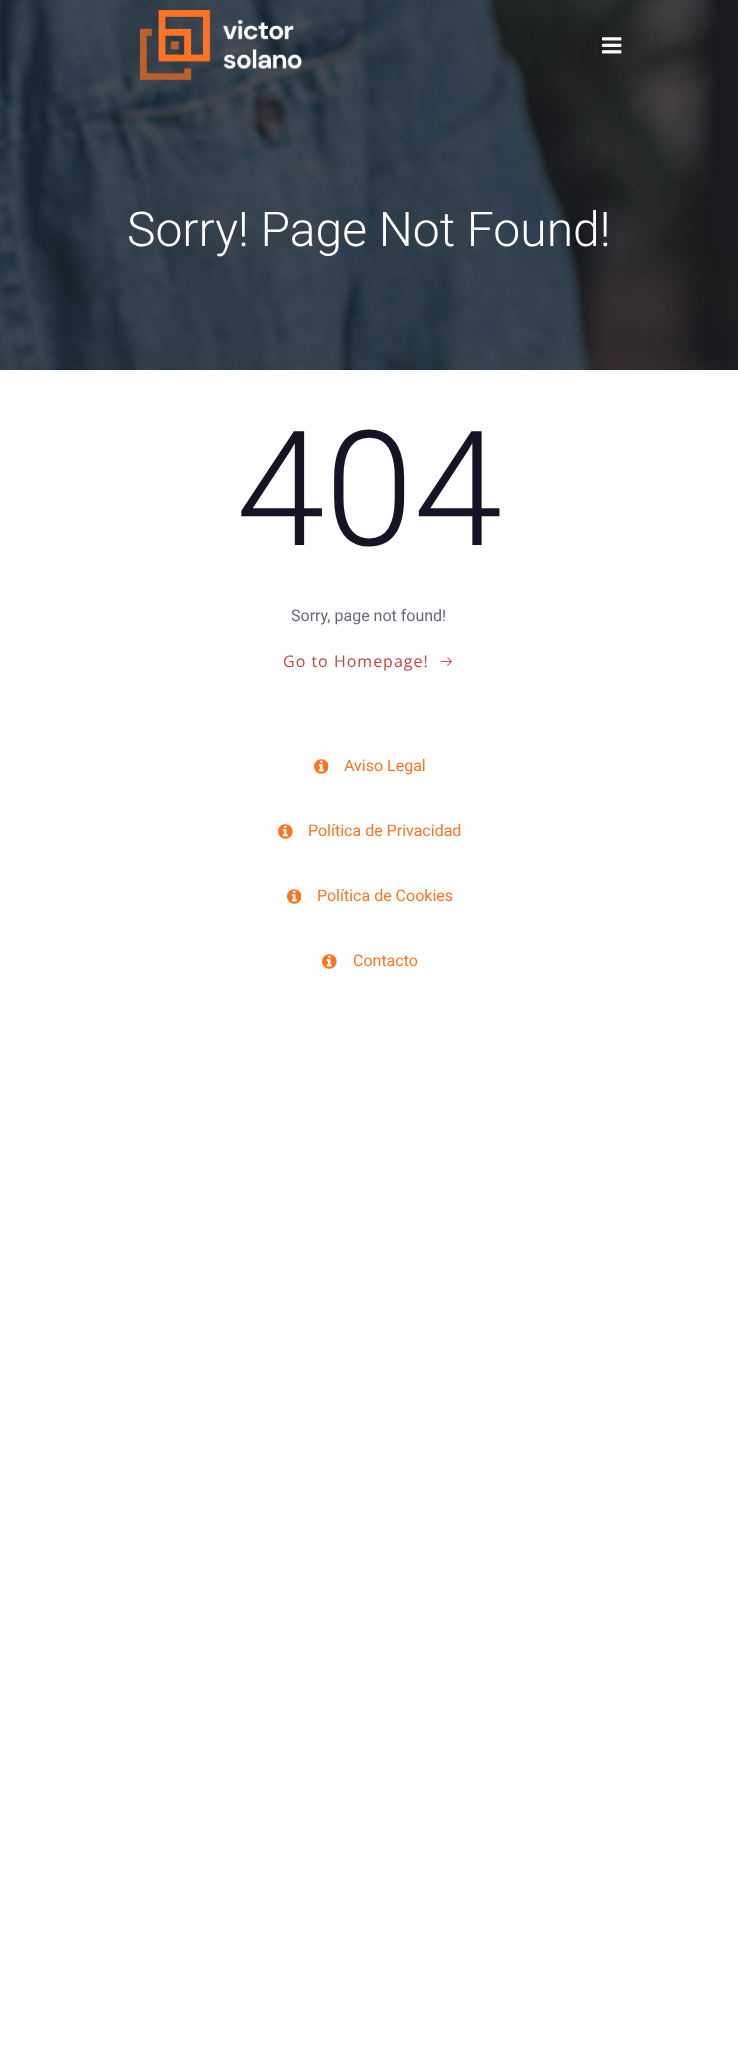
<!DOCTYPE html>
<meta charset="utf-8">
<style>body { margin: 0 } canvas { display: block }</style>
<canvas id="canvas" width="738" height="2046"></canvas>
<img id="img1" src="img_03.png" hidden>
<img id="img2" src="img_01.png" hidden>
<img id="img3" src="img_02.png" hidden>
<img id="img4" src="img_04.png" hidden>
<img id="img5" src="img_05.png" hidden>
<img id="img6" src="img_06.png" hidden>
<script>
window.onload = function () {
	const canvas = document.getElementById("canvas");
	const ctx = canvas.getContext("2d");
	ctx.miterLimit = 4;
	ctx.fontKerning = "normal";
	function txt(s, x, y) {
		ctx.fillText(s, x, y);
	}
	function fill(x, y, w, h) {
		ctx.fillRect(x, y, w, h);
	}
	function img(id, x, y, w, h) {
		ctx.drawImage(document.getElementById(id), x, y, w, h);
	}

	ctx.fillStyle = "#FFFFFF";
	fill(0, 0, 738, 2046);
	img("img1", 0, 0, 738, 370);
	img("img2", 139, 10, 163, 70);
	img("img3", 602, 37, 20, 17);
	img("img4", 440, 657, 12, 9);
	img("img5", 314, 759, 14, 15);
	img("img6", 278, 824, 15, 15);
	img("img5", 287, 889, 14, 15);
	img("img6", 322, 954, 15, 15);
	ctx.font = "300 48px Roboto";
	txt("Sorry! Page Not Found!", 127, 246);
	ctx.font = "300 160px Roboto";
	ctx.fillStyle = "#161325";
	txt("404", 236, 545);
	ctx.font = "16px Roboto";
	ctx.fillStyle = "#6A667A";
	txt("Sorry, page not found!", 291, 621);
	ctx.letterSpacing = "1px";
	ctx.font = "16px Open Sans";
	ctx.fillStyle = "#C24644";
	txt("Go to Homepage!", 283, 667);
	ctx.letterSpacing = "0px";
	ctx.font = "16px Roboto";
	ctx.fillStyle = "#FF7323";
	txt("Aviso Legal", 344, 771);
	txt("Política de Privacidad", 308, 836);
	txt("Política de Cookies", 317, 901);
	txt("Contacto", 353, 966);
};
</script>
